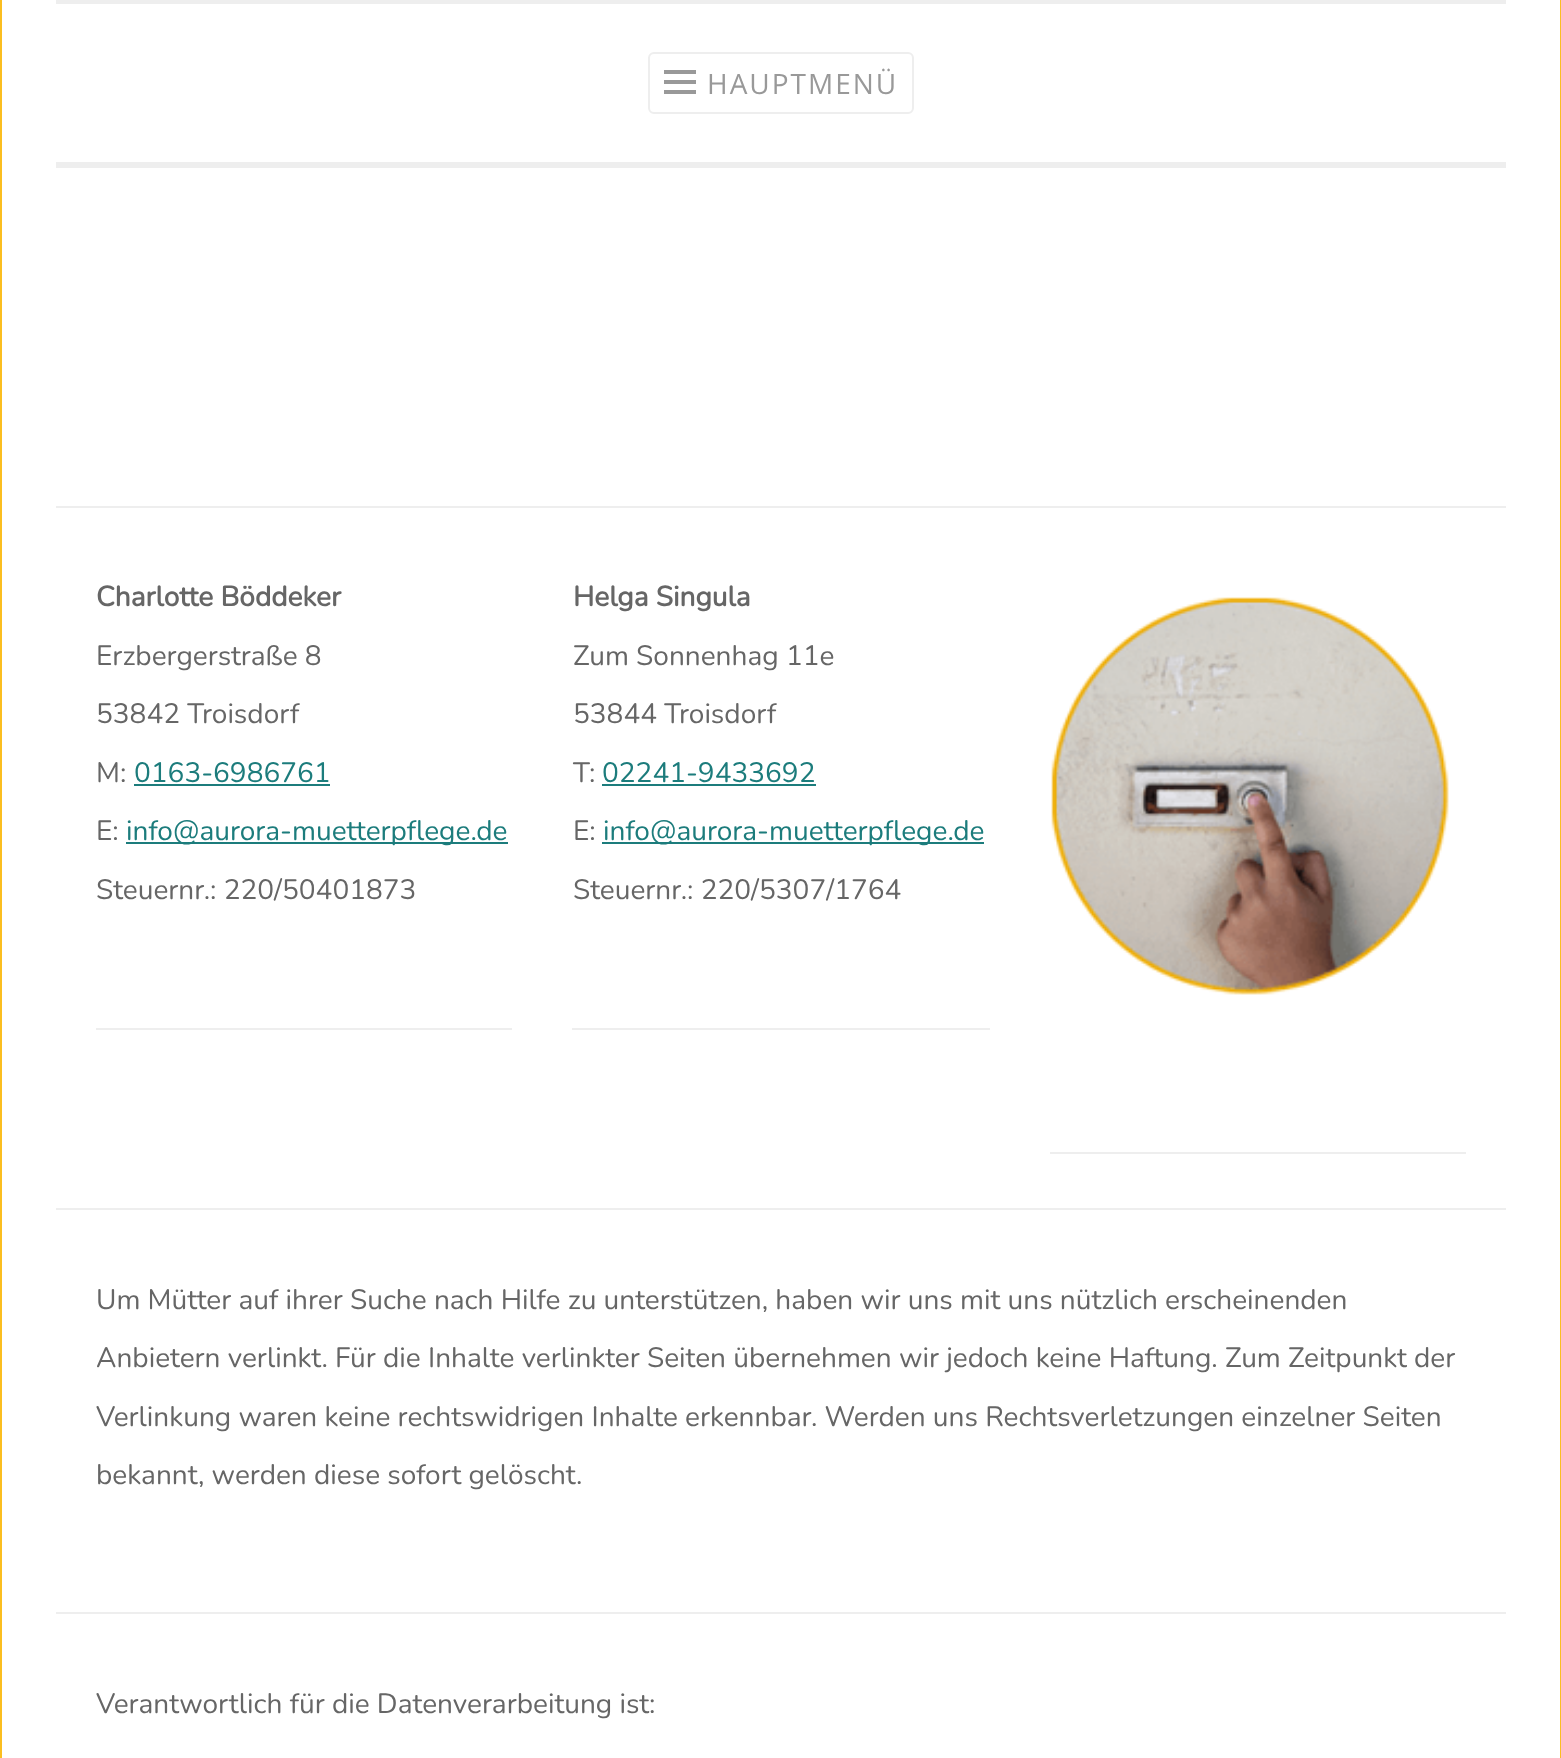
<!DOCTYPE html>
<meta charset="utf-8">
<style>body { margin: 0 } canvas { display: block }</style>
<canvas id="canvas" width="1561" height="1758"></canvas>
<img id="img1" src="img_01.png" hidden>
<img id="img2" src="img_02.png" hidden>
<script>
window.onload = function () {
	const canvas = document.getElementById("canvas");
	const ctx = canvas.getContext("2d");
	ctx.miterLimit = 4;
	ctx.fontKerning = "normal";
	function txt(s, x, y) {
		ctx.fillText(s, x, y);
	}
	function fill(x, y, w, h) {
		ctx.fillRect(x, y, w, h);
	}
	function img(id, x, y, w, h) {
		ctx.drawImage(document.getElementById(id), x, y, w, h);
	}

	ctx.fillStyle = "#FFFFFF";
	fill(0, 0, 1561, 1758);
	ctx.strokeStyle = "#FBBE20";
	ctx.lineWidth = 2;
	ctx.strokeRect(1, -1, 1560, 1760);
	ctx.fillStyle = "#EEEEEE";
	fill(56, 162, 1450, 6);
	fill(56, 0, 1450, 4);
	ctx.beginPath();
	ctx.roundRect(649, 53, 264, 60, 5);
	ctx.strokeStyle = "#EEEEEE";
	ctx.stroke();
	img("img1", 664, 70, 32, 24);
	fill(56, 506, 1450, 2);
	fill(56, 1208, 1450, 2);
	fill(96, 1028, 416, 2);
	ctx.fillStyle = "#1C7C7C";
	fill(134, 784, 196, 2);
	fill(126, 842, 382, 2);
	ctx.fillStyle = "#EEEEEE";
	fill(572, 1028, 418, 2);
	ctx.fillStyle = "#1C7C7C";
	fill(602, 784, 214, 2);
	fill(602, 842, 382, 2);
	ctx.fillStyle = "#EEEEEE";
	fill(1050, 1152, 416, 2);
	img("img2", 1051, 597, 398, 398);
	fill(56, 1612, 1450, 2);
	ctx.letterSpacing = "2px";
	ctx.font = "28px Open Sans";
	ctx.fillStyle = "#999999";
	txt("HAUPTMENÜ", 707, 94);
	ctx.letterSpacing = "0px";
	ctx.font = "bold 28px Nunito";
	ctx.fillStyle = "#666666";
	txt("Charlotte Böddeker", 96, 606);
	ctx.font = "200 28px Nunito";
	txt("Erzbergerstraße 8", 96, 665);
	txt("53842 Troisdorf", 96, 723);
	txt("M:", 96, 782);
	ctx.fillStyle = "#1C7C7C";
	txt("0163-6986761", 134, 782);
	ctx.fillStyle = "#666666";
	txt("E:", 96, 840);
	ctx.fillStyle = "#1C7C7C";
	txt("info@aurora-muetterpflege.de", 126, 840);
	ctx.fillStyle = "#666666";
	txt("Steuernr.: 220/50401873", 96, 899);
	ctx.font = "bold 28px Nunito";
	txt("Helga Singula", 573, 606);
	ctx.font = "200 28px Nunito";
	txt("Zum Sonnenhag 11e", 573, 665);
	txt("53844 Troisdorf", 573, 723);
	txt("T:", 573, 782);
	ctx.fillStyle = "#1C7C7C";
	txt("02241-9433692", 602, 782);
	ctx.fillStyle = "#666666";
	txt("E:", 573, 840);
	ctx.fillStyle = "#1C7C7C";
	txt("info@aurora-muetterpflege.de", 603, 840);
	ctx.fillStyle = "#666666";
	txt("Steuernr.: 220/5307/1764", 573, 899);
	txt("Um Mütter auf ihrer Suche nach Hilfe zu unterstützen, haben wir uns mit uns nützlich erscheinenden", 96, 1309);
	txt("Anbietern verlinkt. Für die Inhalte verlinkter Seiten übernehmen wir jedoch keine Haftung. Zum Zeitpunkt der", 96, 1367);
	txt("Verlinkung waren keine rechtswidrigen Inhalte erkennbar. Werden uns Rechtsverletzungen einzelner Seiten", 96, 1426);
	txt("bekannt, werden diese sofort gelöscht.", 96, 1484);
	txt("Verantwortlich für die Datenverarbeitung ist:", 96, 1713);
};
</script>
